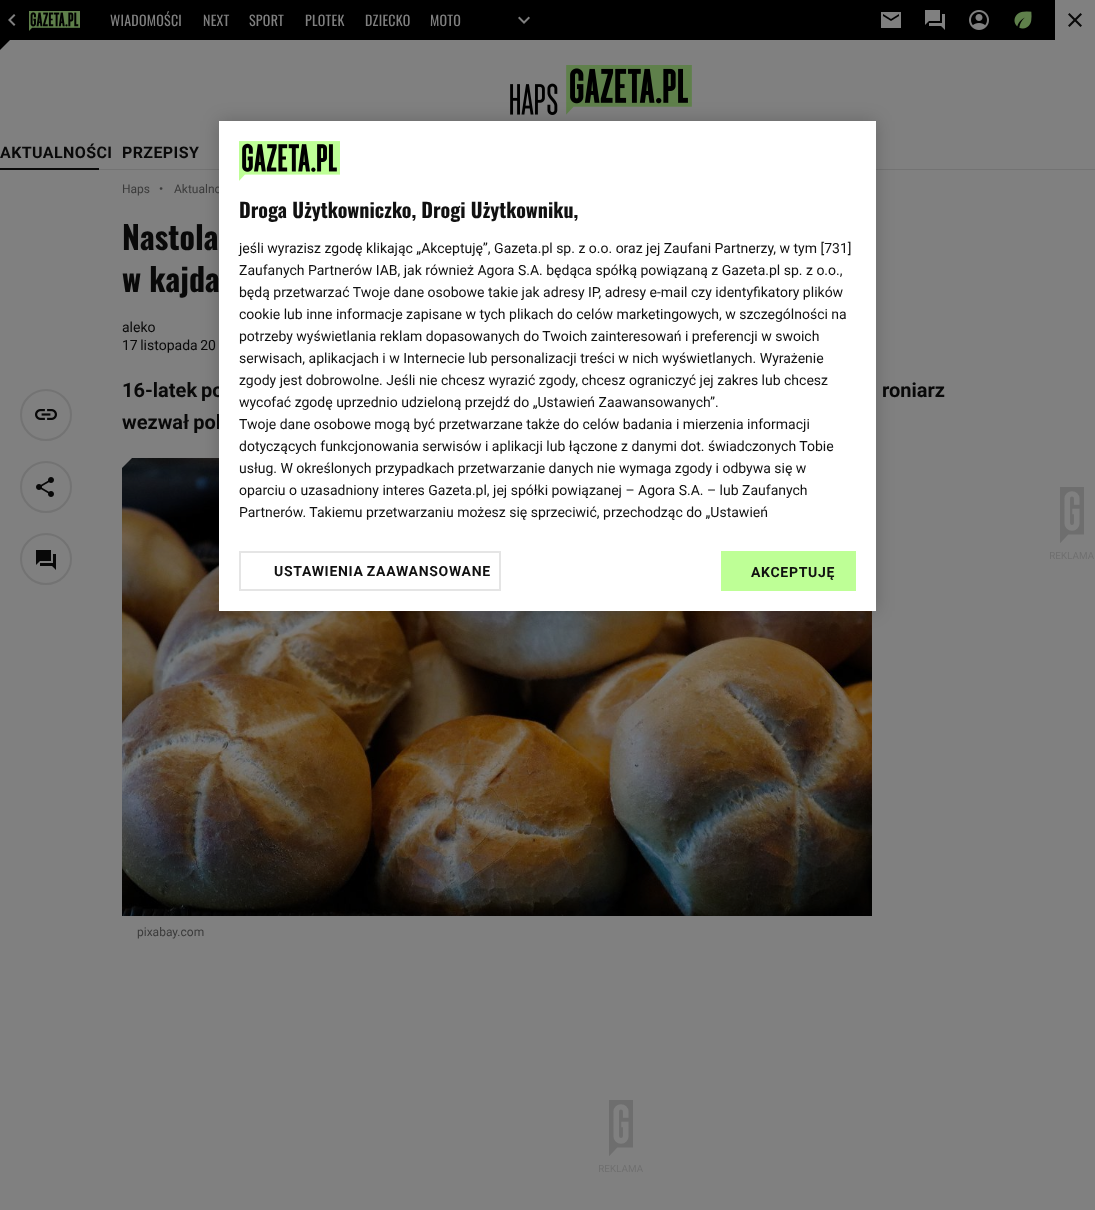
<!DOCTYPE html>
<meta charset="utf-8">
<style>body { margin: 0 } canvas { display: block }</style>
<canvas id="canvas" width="1095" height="1210"></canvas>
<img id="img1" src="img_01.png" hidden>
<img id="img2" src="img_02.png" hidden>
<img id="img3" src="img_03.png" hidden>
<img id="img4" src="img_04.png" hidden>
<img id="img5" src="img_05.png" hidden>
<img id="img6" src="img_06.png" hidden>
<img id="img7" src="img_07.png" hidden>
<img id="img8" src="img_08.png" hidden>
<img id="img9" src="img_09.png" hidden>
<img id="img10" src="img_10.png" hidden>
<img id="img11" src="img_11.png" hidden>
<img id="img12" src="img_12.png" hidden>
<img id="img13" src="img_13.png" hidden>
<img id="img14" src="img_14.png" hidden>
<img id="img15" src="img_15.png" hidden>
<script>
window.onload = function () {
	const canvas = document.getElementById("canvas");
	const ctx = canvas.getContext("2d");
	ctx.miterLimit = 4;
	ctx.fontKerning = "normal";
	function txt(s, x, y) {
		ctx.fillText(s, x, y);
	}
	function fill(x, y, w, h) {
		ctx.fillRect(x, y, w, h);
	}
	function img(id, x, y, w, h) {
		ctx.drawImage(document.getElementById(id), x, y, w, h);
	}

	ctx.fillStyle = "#808080";
	fill(0, 0, 1095, 1210);
	ctx.fillStyle = "#000000";
	fill(0, 0, 1055, 40);
	img("img1", 8, 14, 8, 12);
	img("img2", 29, 11, 51, 20);
	img("img3", 518, 16, 12, 8);
	img("img4", 881, 12, 20, 16);
	img("img5", 925, 10, 20, 20);
	img("img6", 969, 10, 20, 20);
	img("img7", 1014, 11, 18, 18);
	ctx.fillStyle = "#090909";
	ctx.beginPath();
	ctx.moveTo(1082, 14.5);
	ctx.lineTo(1080.5, 13);
	ctx.lineTo(1075, 18.5);
	ctx.lineTo(1069.5, 13);
	ctx.lineTo(1068, 14.5);
	ctx.lineTo(1073.5, 20);
	ctx.lineTo(1068, 25.5);
	ctx.lineTo(1069.5, 27);
	ctx.lineTo(1075, 21.5);
	ctx.lineTo(1080.5, 27);
	ctx.lineTo(1082, 25.5);
	ctx.lineTo(1076.5, 20);
	ctx.closePath();
	ctx.fill();
	ctx.fillStyle = "#000000";
	ctx.beginPath();
	ctx.moveTo(0, 40);
	ctx.lineTo(10, 40);
	ctx.lineTo(0, 50);
	ctx.closePath();
	ctx.fill();
	ctx.fillStyle = "#737373";
	fill(99, 169, 996, 1);
	img("img8", 510, 65, 182, 50);
	ctx.fillStyle = "#090909";
	fill(0, 168, 99, 2);
	ctx.beginPath();
	ctx.arc(46, 415, 25, 0, Math.PI * 2);
	ctx.strokeStyle = "#737373";
	ctx.lineWidth = 2;
	ctx.stroke();
	img("img9", 35, 409, 22, 11);
	ctx.beginPath();
	ctx.arc(46, 487, 25, 0, Math.PI * 2);
	ctx.stroke();
	img("img10", 36, 477, 18, 20);
	ctx.beginPath();
	ctx.arc(46, 559, 25, 0, Math.PI * 2);
	ctx.stroke();
	img("img11", 36, 550, 20, 20);
	img("img12", 122, 458, 750, 458);
	ctx.fillStyle = "#808080";
	ctx.beginPath();
	ctx.moveTo(122, 458);
	ctx.lineTo(132, 458);
	ctx.lineTo(122, 468);
	ctx.closePath();
	ctx.fill();
	img("img13", 1050, 487, 44, 72);
	img("img14", 599, 1100, 44, 72);
	ctx.fillStyle = "rgba(0, 0, 0, 0.2)";
	ctx.filter = "blur(9px)";
	ctx.beginPath();
	ctx.rect(219, 121, 657, 490);
	ctx.fill();
	ctx.filter = "none";
	ctx.letterSpacing = "0.25px";
	ctx.font = "14px Oswald";
	ctx.fillStyle = "#808080";
	txt("WIADOMOŚCI", 110, 26);
	txt("NEXT", 203, 26);
	txt("SPORT", 249, 26);
	txt("PLOTEK", 305, 26);
	txt("DZIECKO", 365, 26);
	txt("MOTO", 430, 26);
	ctx.letterSpacing = "0.4px";
	ctx.font = "bold 16px Roboto";
	ctx.fillStyle = "#090909";
	txt("AKTUALNOŚCI", 0, 158);
	txt("PRZEPISY", 122, 158);
	ctx.letterSpacing = "0px";
	ctx.font = "12px Roboto";
	ctx.fillStyle = "#3B3B3B";
	txt("Haps", 122, 193);
	ctx.font = "24px Roboto";
	txt("·", 158, 197);
	ctx.font = "12px Roboto";
	txt("Aktualno", 174, 193);
	ctx.font = "bold 32px Oswald";
	ctx.fillStyle = "#090909";
	txt("Nastola", 122, 250);
	txt("w kajda", 122, 292);
	ctx.font = "14px Roboto";
	txt("aleko", 122, 332);
	ctx.wordSpacing = "-1px";
	txt("17 listopada 20", 122, 350);
	ctx.font = "bold 20px Roboto";
	txt("16-latek po", 122, 397);
	txt("roniarz", 882, 397);
	txt("wezwał pol", 122, 429);
	ctx.wordSpacing = "0px";
	ctx.font = "12px Roboto";
	ctx.fillStyle = "#3B3B3B";
	txt("pixabay.com", 137, 936);
	ctx.fillStyle = "#FFFFFF";
	fill(219, 121, 657, 490);
	img("img15", 239, 141, 101, 40);
	ctx.font = "bold 20px Oswald";
	ctx.fillStyle = "#111111";
	txt("Droga Użytkowniczko, Drogi Użytkowniku,", 239, 218);
	ctx.font = "14px Roboto";
	txt("jeśli wyrazisz zgodę klikając „Akceptuję”, Gazeta.pl sp. z o.o. oraz jej Zaufani Partnerzy, w tym [731]", 239, 253);
	txt("Zaufanych Partnerów IAB, jak również Agora S.A. będąca spółką powiązaną z Gazeta.pl sp. z o.o.,", 239, 275);
	txt("będą przetwarzać Twoje dane osobowe takie jak adresy IP, adresy e-mail czy identyfikatory plików", 239, 297);
	txt("cookie lub inne informacje zapisane w tych plikach do celów marketingowych, w szczególności na", 239, 319);
	txt("potrzeby wyświetlania reklam dopasowanych do Twoich zainteresowań i preferencji w swoich", 239, 341);
	txt("serwisach, aplikacjach i w Internecie lub personalizacji treści w nich wyświetlanych. Wyrażenie", 239, 363);
	txt("zgody jest dobrowolne. Jeśli nie chcesz wyrazić zgody, chcesz ograniczyć jej zakres lub chcesz", 239, 385);
	txt("wycofać zgodę uprzednio udzieloną przejdź do „Ustawień Zaawansowanych”.", 239, 407);
	txt("Twoje dane osobowe mogą być przetwarzane także do celów badania i mierzenia informacji", 239, 429);
	txt("dotyczących funkcjonowania serwisów i aplikacji lub łączone z danymi dot. świadczonych Tobie", 239, 451);
	txt("usług. W określonych przypadkach przetwarzanie danych nie wymaga zgody i odbywa się w", 239, 473);
	txt("oparciu o uzasadniony interes Gazeta.pl, jej spółki powiązanej – Agora S.A. – lub Zaufanych", 239, 495);
	txt("Partnerów. Takiemu przetwarzaniu możesz się sprzeciwić, przechodząc do „Ustawień", 239, 517);
	ctx.strokeStyle = "#E5E5E5";
	ctx.strokeRect(240, 552, 260, 38);
	ctx.letterSpacing = "0.7px";
	ctx.wordSpacing = "-1px";
	ctx.font = "bold 14px Roboto";
	txt("USTAWIENIA ZAAWANSOWANE", 274, 576);
	ctx.fillStyle = "#BEFF96";
	fill(721, 551, 135, 40);
	ctx.wordSpacing = "0px";
	ctx.fillStyle = "#111111";
	txt("AKCEPTUJĘ", 751, 577);
};
</script>
